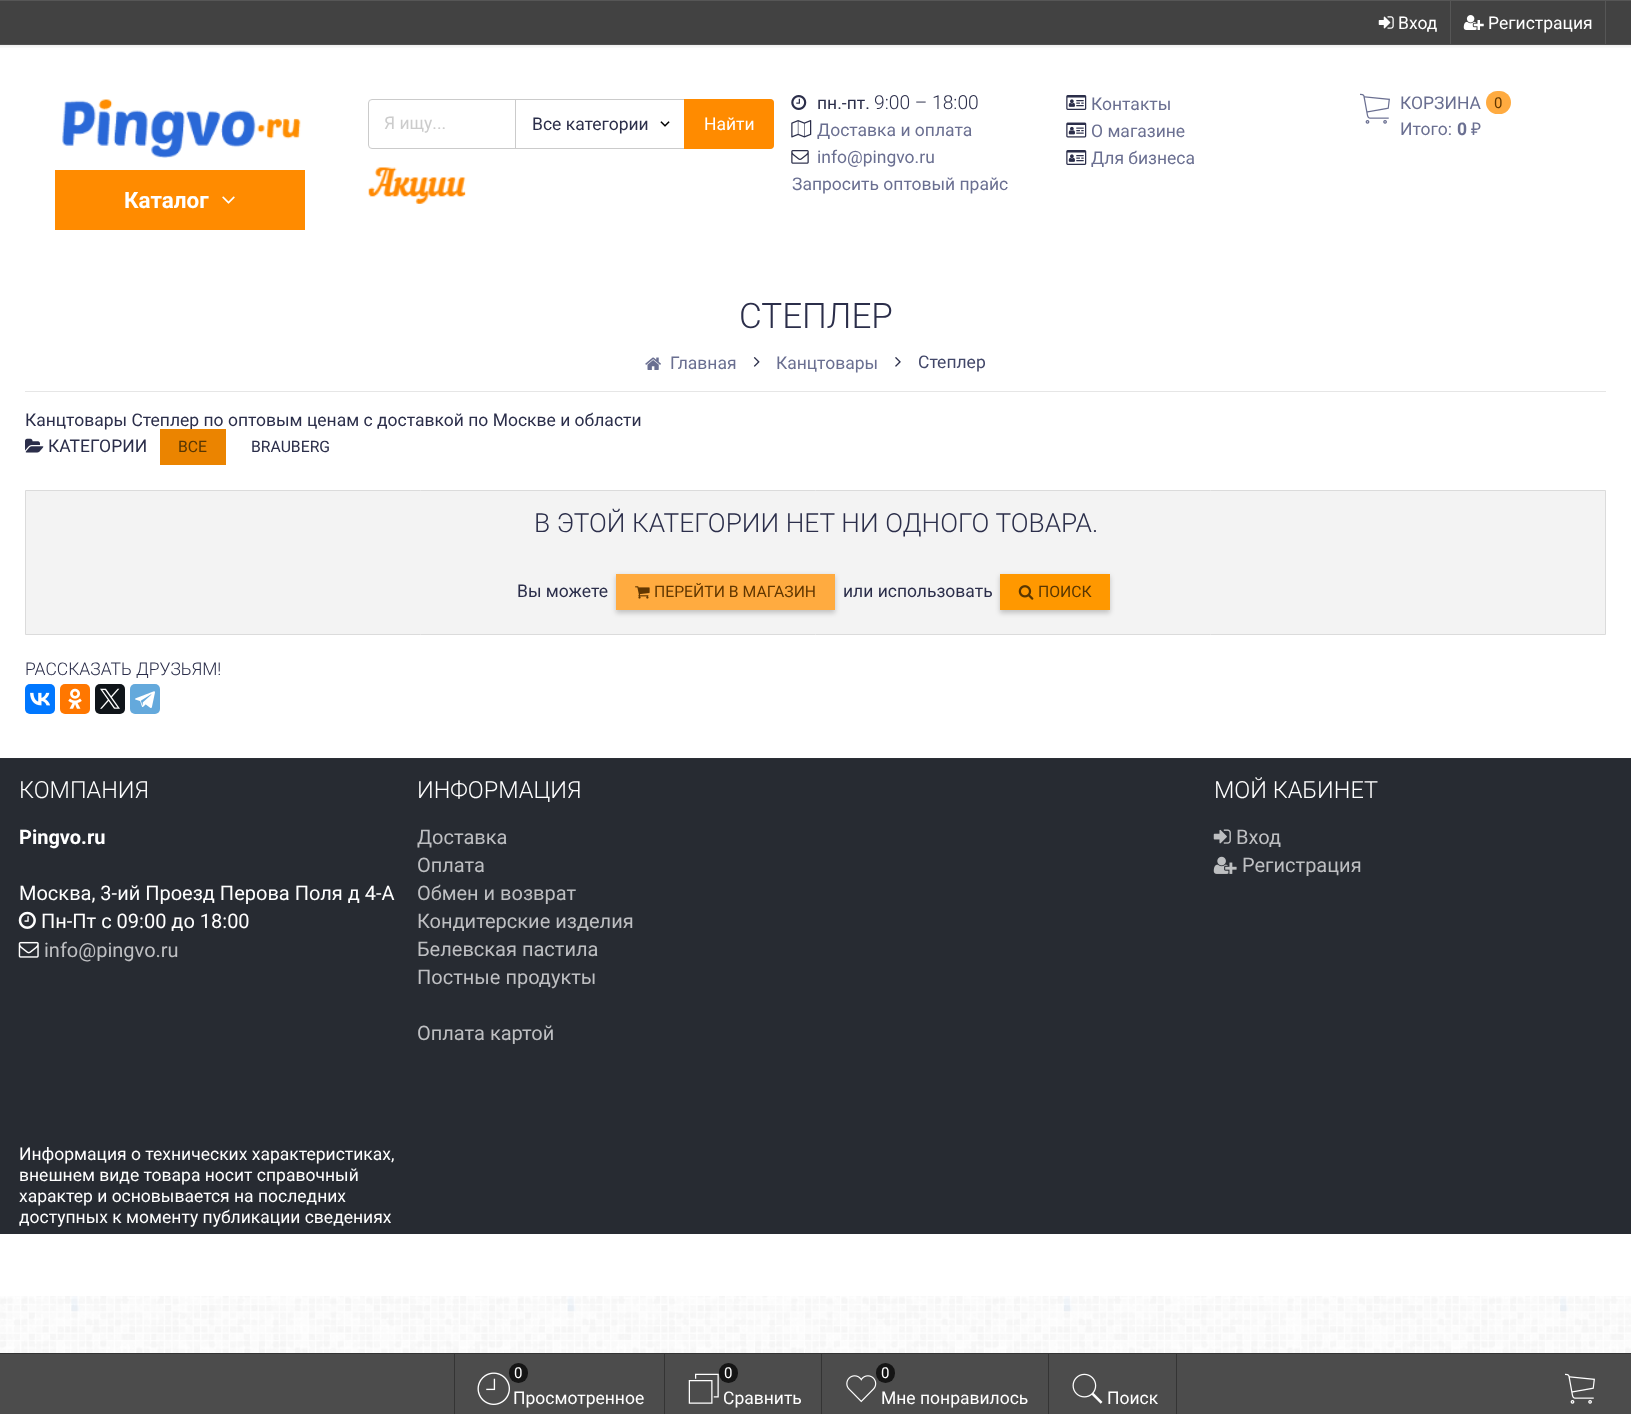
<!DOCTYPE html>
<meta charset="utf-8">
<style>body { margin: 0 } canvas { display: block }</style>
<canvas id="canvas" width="1631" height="1414"></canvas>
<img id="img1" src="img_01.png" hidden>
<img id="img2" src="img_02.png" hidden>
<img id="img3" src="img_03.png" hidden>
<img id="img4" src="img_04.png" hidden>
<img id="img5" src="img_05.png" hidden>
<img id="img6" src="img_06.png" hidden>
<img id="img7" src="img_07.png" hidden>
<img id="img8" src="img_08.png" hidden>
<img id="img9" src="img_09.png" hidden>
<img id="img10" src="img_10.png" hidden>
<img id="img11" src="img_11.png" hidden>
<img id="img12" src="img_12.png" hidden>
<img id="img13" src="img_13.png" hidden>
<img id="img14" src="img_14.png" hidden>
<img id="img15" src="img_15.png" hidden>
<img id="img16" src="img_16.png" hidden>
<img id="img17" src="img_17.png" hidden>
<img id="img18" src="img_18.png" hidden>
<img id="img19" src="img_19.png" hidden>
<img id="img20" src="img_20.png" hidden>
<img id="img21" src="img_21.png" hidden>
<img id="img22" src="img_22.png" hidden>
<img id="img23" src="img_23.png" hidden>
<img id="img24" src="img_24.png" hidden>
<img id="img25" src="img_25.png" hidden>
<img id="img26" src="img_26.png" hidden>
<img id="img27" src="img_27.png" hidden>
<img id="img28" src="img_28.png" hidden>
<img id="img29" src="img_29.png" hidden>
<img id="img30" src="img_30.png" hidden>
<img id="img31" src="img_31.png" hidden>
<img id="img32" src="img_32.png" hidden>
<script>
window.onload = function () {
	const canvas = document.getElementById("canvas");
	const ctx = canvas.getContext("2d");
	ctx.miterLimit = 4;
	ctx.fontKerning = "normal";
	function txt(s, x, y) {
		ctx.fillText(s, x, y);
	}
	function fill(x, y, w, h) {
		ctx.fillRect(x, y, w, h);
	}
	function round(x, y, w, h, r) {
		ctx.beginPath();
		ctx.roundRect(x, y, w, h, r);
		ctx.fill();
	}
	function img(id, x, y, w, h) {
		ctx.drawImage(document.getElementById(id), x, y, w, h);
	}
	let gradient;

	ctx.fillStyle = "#FFFFFF";
	fill(0, 0, 1631, 1414);
	img("img1", 0, 1296, 1631, 118);
	ctx.fillStyle = "#424242";
	fill(0, 1, 1631, 43);
	ctx.fillStyle = "#565656";
	fill(0, 0, 1631, 1);
	fill(0, 44, 1631, 1);
	fill(1450, 1, 1, 43);
	img("img2", 1378, 16, 16, 13);
	fill(1605, 1, 1, 43);
	img("img3", 1463, 15, 21, 15);
	gradient = ctx.createLinearGradient(816, 44, 816, 49);
	gradient.addColorStop(0, "rgba(0, 0, 0, 0.08)");
	gradient.addColorStop(1, "rgba(0, 0, 0, 0)");
	ctx.fillStyle = gradient;
	fill(0, 44, 1631, 4);
	ctx.beginPath();
	ctx.roundRect(368.5, 99.5, 405, 49, 3.5);
	ctx.strokeStyle = "#CBCBCB";
	ctx.stroke();
	ctx.fillStyle = "#CBCBCB";
	fill(515, 100, 1, 48);
	img("img4", 660, 121, 10, 6);
	ctx.fillStyle = "#FF8B00";
	ctx.beginPath();
	ctx.roundRect(684, 99, 90, 50, [0, 4, 4, 0]);
	ctx.fill();
	img("img5", 368, 167, 98, 37);
	img("img6", 791, 95, 16, 15);
	img("img7", 791, 120, 21, 18);
	img("img8", 791, 150, 18, 14);
	img("img9", 1066, 95, 21, 15);
	img("img10", 1066, 122, 21, 16);
	img("img9", 1066, 150, 21, 15);
	img("img11", 1360, 93, 30, 31);
	ctx.fillStyle = "#FFAB40";
	round(1486, 91, 25, 23, 11.5);
	img("img12", 62, 99, 239, 59);
	ctx.fillStyle = "#FF8B00";
	fill(55, 170, 250, 60);
	img("img13", 222, 196, 13, 8);
	ctx.fillStyle = "#E6E6E6";
	fill(25, 391, 1581, 1);
	img("img14", 645, 357, 16, 13);
	img("img15", 753, 357, 7, 10);
	img("img16", 895, 357, 6, 10);
	img("img17", 25, 438, 19, 15);
	ctx.fillStyle = "#F3F3F3";
	ctx.beginPath();
	ctx.rect(25.5, 490.5, 1580, 144);
	ctx.fill();
	ctx.strokeStyle = "#DBDBDB";
	ctx.stroke();
	ctx.fillStyle = "rgba(0, 0, 0, 0.2)";
	ctx.filter = "blur(2.5px)";
	ctx.beginPath();
	ctx.rect(616, 576, 219, 37);
	ctx.fill();
	ctx.filter = "none";
	ctx.fillStyle = "#FFAB40";
	fill(616, 574, 219, 36);
	img("img18", 635, 586, 15, 13);
	ctx.fillStyle = "rgba(0, 0, 0, 0.2)";
	ctx.filter = "blur(2.5px)";
	ctx.beginPath();
	ctx.rect(1000, 576, 110, 37);
	ctx.fill();
	ctx.filter = "none";
	ctx.fillStyle = "#FF9800";
	fill(1000, 574, 110, 36);
	img("img19", 1018, 585, 16, 15);
	ctx.fillStyle = "#0077FF";
	round(25, 684, 30, 30, 5);
	img("img20", 30, 692, 20, 14);
	ctx.fillStyle = "#FF7700";
	round(60, 684, 30, 30, 5);
	img("img21", 68, 688, 14, 21);
	ctx.fillStyle = "#0F1419";
	round(95, 684, 30, 30, 5);
	img("img22", 100, 688, 20, 21);
	ctx.fillStyle = "#64A9DC";
	round(130, 684, 30, 30, 5);
	img("img23", 135, 691, 20, 17);
	ctx.fillStyle = "#272B32";
	fill(0, 759, 1631, 475);
	ctx.fillStyle = "#2B2F36";
	fill(0, 758, 1631, 1);
	img("img24", 18, 911, 18, 18);
	img("img25", 18, 941, 21, 17);
	img("img26", 1213, 829, 18, 15);
	img("img27", 1213, 856, 24, 18);
	ctx.fillStyle = "rgba(66, 66, 66, 0.95)";
	fill(0, 1354, 1631, 60);
	ctx.fillStyle = "#343434";
	fill(0, 1353, 1631, 1);
	fill(454, 1354, 1, 60);
	img("img28", 477, 1372, 33, 33);
	ctx.fillStyle = "#151515";
	round(509, 1363, 19, 20, 9.5);
	ctx.fillStyle = "#343434";
	fill(664, 1354, 1, 60);
	img("img29", 688, 1373, 31, 31);
	ctx.fillStyle = "#151515";
	round(719, 1363, 19, 20, 9.5);
	ctx.fillStyle = "#343434";
	fill(821, 1354, 1, 60);
	img("img30", 846, 1375, 31, 28);
	ctx.fillStyle = "#151515";
	round(876, 1363, 19, 20, 9.5);
	ctx.fillStyle = "#343434";
	fill(1176, 1354, 1, 60);
	fill(1048, 1354, 1, 60);
	img("img31", 1072, 1373, 31, 31);
	img("img32", 1565, 1373, 30, 31);
	ctx.font = "17.5px Roboto";
	ctx.fillStyle = "#FFFFFF";
	txt("Вход", 1398, 29);
	txt("Регистрация", 1488, 29);
	ctx.fillStyle = "#CCCCCC";
	txt("Я ищу...", 384, 129);
	ctx.fillStyle = "#2B2E4A";
	txt("Все категории", 532, 130);
	ctx.fillStyle = "#FFFFFF";
	txt("Найти", 704, 130);
	ctx.fillStyle = "#2B2E4A";
	txt("пн.-пт.", 817, 109);
	ctx.font = "300 19.25px Roboto";
	txt("9:00 – 18:00", 874, 109);
	ctx.font = "17.5px Roboto";
	ctx.fillStyle = "#6A6F91";
	txt("Доставка и оплата", 817, 136);
	txt("info@pingvo.ru", 817, 163);
	txt("Запросить оптовый прайс", 792, 190);
	txt("Контакты", 1091, 110);
	txt("О магазине", 1091, 137);
	txt("Для бизнеса", 1091, 164);
	txt("КОРЗИНА", 1400, 109);
	ctx.font = "15px Roboto";
	ctx.fillStyle = "#613701";
	txt("0", 1494, 108);
	ctx.font = "17.5px Roboto";
	ctx.fillStyle = "#6A6F91";
	txt("Итого:", 1400, 135);
	ctx.font = "bold 17.5px Roboto";
	txt("0", 1457, 135);
	ctx.font = "17.5px Noto Sans";
	txt("₽", 1471, 135);
	ctx.font = "bold 22.5px Roboto";
	ctx.fillStyle = "#FFFFFF";
	txt("Каталог", 124, 208);
	ctx.font = "300 35px Roboto";
	ctx.fillStyle = "#2B2E4A";
	txt("СТЕПЛЕР", 739, 328);
	ctx.font = "17.5px Roboto";
	ctx.fillStyle = "#6A6F91";
	txt("Главная", 670, 369);
	txt("Канцтовары", 776, 369);
	ctx.fillStyle = "#424769";
	txt("Степлер", 918, 368);
	ctx.fillStyle = "#2B2E4A";
	txt("Канцтовары Степлер по оптовым ценам с доставкой по Москве и области", 25, 426);
	txt("КАТЕГОРИИ", 48, 452);
	ctx.fillStyle = "#EB8400";
	fill(160, 429, 66, 36);
	ctx.font = "15.75px Roboto";
	ctx.fillStyle = "#583602";
	txt("ВСЕ", 178, 452);
	ctx.fillStyle = "#2B2E4A";
	txt("BRAUBERG", 251, 452);
	ctx.wordSpacing = "0.25px";
	ctx.font = "300 26.25px Roboto";
	txt("В ЭТОЙ КАТЕГОРИИ НЕТ НИ ОДНОГО ТОВАРА.", 534, 532);
	ctx.wordSpacing = "0px";
	ctx.font = "17.5px Roboto";
	txt("Вы можете", 517, 597);
	ctx.font = "15.75px Roboto";
	ctx.fillStyle = "#613701";
	txt("ПЕРЕЙТИ В МАГАЗИН", 654, 597);
	ctx.font = "17.5px Roboto";
	ctx.fillStyle = "#2B2E4A";
	txt("или использовать", 843, 597);
	ctx.font = "15.75px Roboto";
	ctx.fillStyle = "#583602";
	txt("ПОИСК", 1038, 597);
	ctx.font = "300 17.5px Roboto";
	ctx.fillStyle = "#2B2E4A";
	txt("РАССКАЗАТЬ ДРУЗЬЯМ!", 25, 675);
	ctx.font = "300 23.5px Roboto";
	ctx.fillStyle = "#FFFFFF";
	txt("КОМПАНИЯ", 19, 798);
	ctx.font = "bold 20px Roboto";
	txt("Pingvo.ru", 19, 844);
	ctx.font = "20px Roboto";
	txt("Москва, 3-ий Проезд Перова Поля д 4-А", 19, 900);
	txt("Пн-Пт с 09:00 до 18:00", 41, 928);
	ctx.fillStyle = "#BEBFC2";
	txt("info@pingvo.ru", 44, 957);
	ctx.font = "300 23.5px Roboto";
	ctx.fillStyle = "#FFFFFF";
	txt("ИНФОРМАЦИЯ", 417, 798);
	ctx.font = "20px Roboto";
	ctx.fillStyle = "#BEBFC2";
	txt("Доставка", 417, 844);
	txt("Оплата", 417, 872);
	txt("Обмен и возврат", 417, 900);
	txt("Кондитерские изделия", 417, 928);
	txt("Белевская пастила", 417, 956);
	txt("Постные продукты", 417, 984);
	txt("Оплата картой", 417, 1040);
	ctx.font = "300 23.5px Roboto";
	ctx.fillStyle = "#FFFFFF";
	txt("МОЙ КАБИНЕТ", 1214, 798);
	ctx.font = "20px Roboto";
	ctx.fillStyle = "#BEBFC2";
	txt("Вход", 1236, 844);
	txt("Регистрация", 1242, 872);
	ctx.font = "17.5px Roboto";
	ctx.fillStyle = "#FFFFFF";
	txt("Информация о технических характеристиках,", 19, 1160);
	txt("внешнем виде товара носит справочный", 19, 1181);
	txt("характер и основывается на последних", 19, 1202);
	txt("доступных к моменту публикации сведениях", 19, 1223);
	ctx.font = "15px Roboto";
	txt("0", 514, 1378);
	ctx.font = "17.5px Roboto";
	txt("Просмотренное", 513, 1404);
	ctx.font = "15px Roboto";
	txt("0", 724, 1378);
	ctx.font = "17.5px Roboto";
	txt("Сравнить", 723, 1404);
	ctx.font = "15px Roboto";
	txt("0", 881, 1378);
	ctx.font = "17.5px Roboto";
	txt("Мне понравилось", 881, 1404);
	txt("Поиск", 1107, 1404);
};
</script>
